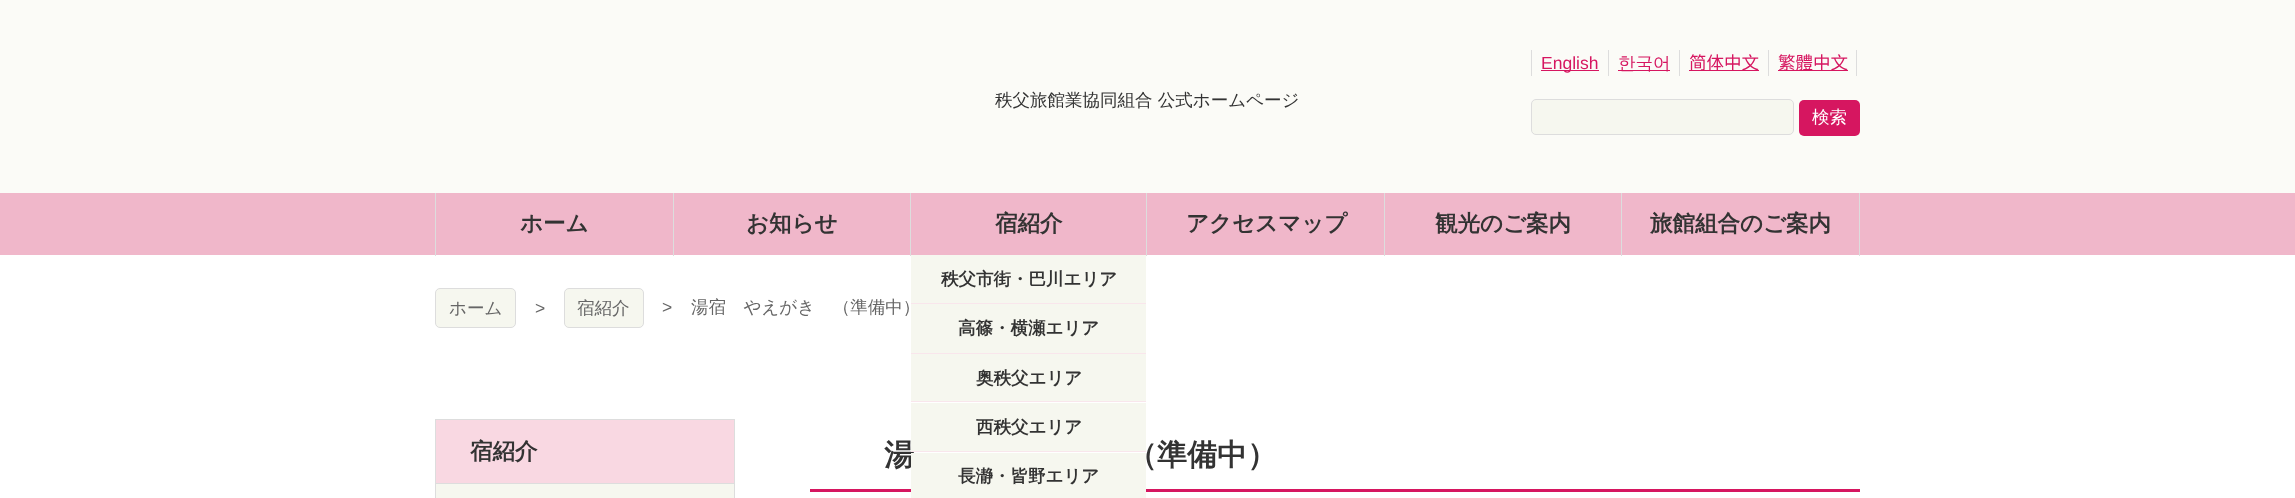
<!DOCTYPE html>
<meta charset="utf-8">
<style>body { margin: 0 } canvas { display: block }</style>
<canvas id="canvas" width="2295" height="498"></canvas>
<script>
window.onload = function () {
	const canvas = document.getElementById("canvas");
	const ctx = canvas.getContext("2d");
	ctx.miterLimit = 4;
	ctx.fontKerning = "normal";
	function txt(s, x, y) {
		ctx.fillText(s, x, y);
	}
	function fill(x, y, w, h) {
		ctx.fillRect(x, y, w, h);
	}
	function round(x, y, w, h, r) {
		ctx.beginPath();
		ctx.roundRect(x, y, w, h, r);
		ctx.fill();
	}

	ctx.fillStyle = "#FFFFFF";
	fill(0, 0, 2295, 498);
	ctx.fillStyle = "#FBFBF7";
	fill(0, 0, 2295, 193);
	ctx.fillStyle = "#DDDDDD";
	fill(1531, 50, 1, 26);
	fill(1608, 50, 1, 26);
	ctx.fillStyle = "#D61660";
	fill(1541, 70, 58, 1);
	ctx.fillStyle = "#DDDDDD";
	fill(1679, 50, 1, 26);
	ctx.fillStyle = "#D61660";
	fill(1618, 70, 52, 1);
	ctx.fillStyle = "#DDDDDD";
	fill(1768, 50, 1, 26);
	ctx.fillStyle = "#D61660";
	fill(1689, 70, 70, 1);
	ctx.fillStyle = "#DDDDDD";
	fill(1856, 50, 1, 26);
	ctx.fillStyle = "#D61660";
	fill(1778, 70, 70, 1);
	ctx.fillStyle = "#F6F7EF";
	ctx.beginPath();
	ctx.roundRect(1531.5, 99.5, 262, 35, 4.5);
	ctx.fill();
	ctx.strokeStyle = "#DDDDDD";
	ctx.stroke();
	ctx.fillStyle = "#D61660";
	round(1799, 100, 61, 36, 5);
	ctx.fillStyle = "#F0B7CA";
	fill(0, 193, 2295, 62);
	ctx.fillStyle = "#DDDDDD";
	fill(435, 193, 1, 63);
	fill(673, 193, 1, 63);
	fill(910, 193, 1, 63);
	ctx.fillStyle = "#F9E6EC";
	fill(911, 303, 235, 1);
	ctx.fillStyle = "#F6F7EF";
	fill(911, 255, 235, 48);
	ctx.fillStyle = "#F9E6EC";
	fill(911, 353, 235, 1);
	ctx.fillStyle = "#F6F7EF";
	fill(911, 304, 235, 49);
	ctx.fillStyle = "#F9E6EC";
	fill(911, 401, 235, 1);
	ctx.fillStyle = "#F6F7EF";
	fill(911, 354, 235, 47);
	ctx.fillStyle = "#DDDDDD";
	fill(1146, 193, 1, 63);
	fill(1384, 193, 1, 63);
	fill(1859, 193, 1, 63);
	fill(1621, 193, 1, 63);
	ctx.fillStyle = "#F6F7EF";
	ctx.beginPath();
	ctx.roundRect(435.5, 288.5, 80, 39, 4.5);
	ctx.fill();
	ctx.stroke();
	ctx.beginPath();
	ctx.roundRect(564.5, 288.5, 79, 39, 4.5);
	ctx.fill();
	ctx.stroke();
	ctx.strokeRect(435.5, 419.5, 299, 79);
	ctx.fillStyle = "#F9D8E2";
	fill(436, 420, 298, 63);
	ctx.fillStyle = "#DDDDDD";
	fill(436, 483, 298, 1);
	ctx.fillStyle = "#F6F7EF";
	fill(436, 484, 298, 14);
	ctx.fillStyle = "#D61660";
	fill(810, 489, 1050, 3);
	ctx.font = "500 17.5px WenQuanYi Zen Hei";
	ctx.fillStyle = "#333333";
	txt("秩父旅館業協同組合 公式ホームページ", 995, 106);
	ctx.font = "17.5px Liberation Sans";
	ctx.fillStyle = "#D61660";
	txt("English", 1541, 69);
	ctx.font = "500 17.5px WenQuanYi Zen Hei";
	txt("한국어", 1618, 69);
	ctx.font = "17.5px Noto Sans CJK SC";
	txt("简体中文", 1689, 69);
	ctx.font = "17.5px Noto Sans CJK TC";
	txt("繁體中文", 1778, 69);
	ctx.font = "500 17.5px WenQuanYi Zen Hei";
	ctx.fillStyle = "#FFFFFF";
	txt("検索", 1812, 123);
	ctx.font = "bold 22.5px WenQuanYi Zen Hei";
	ctx.fillStyle = "#333333";
	txt("ホーム", 520, 231);
	txt("お知らせ", 746, 231);
	txt("宿紹介", 995, 231);
	ctx.font = "bold 17.5px WenQuanYi Zen Hei";
	txt("秩父市街・巴川エリア", 941, 285);
	txt("高篠・横瀬エリア", 958, 334);
	txt("奥秩父エリア", 976, 384);
	ctx.font = "bold 22.5px WenQuanYi Zen Hei";
	txt("アクセスマップ", 1186, 231);
	txt("観光のご案内", 1435, 231);
	txt("旅館組合のご案内", 1650, 231);
	ctx.font = "500 17.5px WenQuanYi Zen Hei";
	ctx.fillStyle = "#666666";
	txt("ホーム", 449, 314);
	ctx.font = "17.5px Liberation Sans";
	txt(">", 535, 314);
	ctx.font = "500 17.5px WenQuanYi Zen Hei";
	txt("宿紹介", 577, 314);
	ctx.font = "17.5px Liberation Sans";
	txt(">", 662, 313);
	ctx.font = "500 17.5px WenQuanYi Zen Hei";
	txt("湯宿　やえがき　（準備中）", 691, 313);
	ctx.font = "bold 22.5px WenQuanYi Zen Hei";
	ctx.fillStyle = "#333333";
	txt("宿紹介", 470, 459);
	ctx.font = "bold 30px WenQuanYi Zen Hei";
	txt("湯", 884, 465);
	ctx.fillStyle = "#F6F7EF";
	fill(911, 453, 235, 45);
	ctx.font = "bold 17.5px WenQuanYi Zen Hei";
	ctx.fillStyle = "#333333";
	txt("長瀞・皆野エリア", 958, 482);
	ctx.fillStyle = "#F6F7EF";
	fill(911, 403, 235, 48);
	ctx.fillStyle = "#333333";
	txt("西秩父エリア", 976, 433);
	ctx.fillStyle = "#F9E6EC";
	fill(911, 451, 235, 1);
	ctx.font = "bold 30px WenQuanYi Zen Hei";
	ctx.fillStyle = "#333333";
	txt("（準備中）", 1127, 465);
};
</script>
